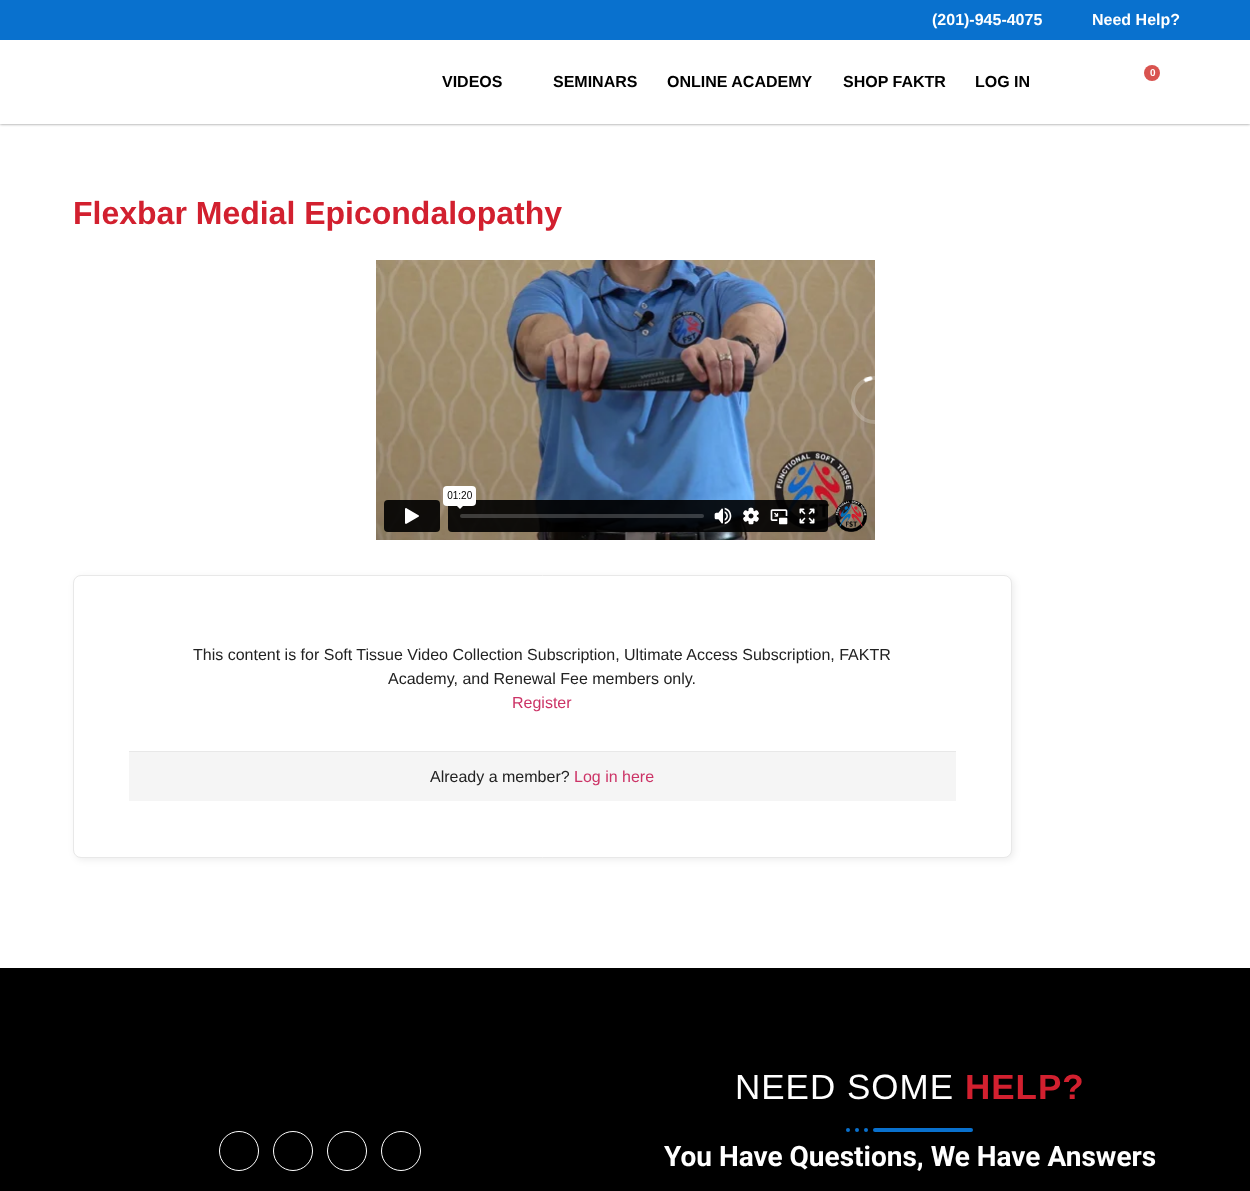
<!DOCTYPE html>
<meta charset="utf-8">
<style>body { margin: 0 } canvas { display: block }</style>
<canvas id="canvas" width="1250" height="1191"></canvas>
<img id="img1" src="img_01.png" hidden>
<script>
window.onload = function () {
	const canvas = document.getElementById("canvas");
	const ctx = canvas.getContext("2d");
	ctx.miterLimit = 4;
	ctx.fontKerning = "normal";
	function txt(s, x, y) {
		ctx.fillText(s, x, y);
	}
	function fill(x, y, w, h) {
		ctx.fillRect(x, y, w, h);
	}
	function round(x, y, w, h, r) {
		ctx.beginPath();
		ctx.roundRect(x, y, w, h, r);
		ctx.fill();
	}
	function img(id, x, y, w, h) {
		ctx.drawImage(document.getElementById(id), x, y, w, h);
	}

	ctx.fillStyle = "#FFFFFF";
	fill(0, 0, 1250, 1191);
	ctx.save();
	ctx.beginPath();
	ctx.rect(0, 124, 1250, 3);
	ctx.clip();
	ctx.fillStyle = "rgba(0, 0, 0, 0.5)";
	ctx.filter = "blur(1.5px)";
	ctx.beginPath();
	ctx.rect(0, 0, 1250, 124);
	ctx.fill();
	ctx.filter = "none";
	ctx.restore();
	ctx.fillStyle = "#0971CE";
	fill(0, 0, 1250, 40);
	ctx.fillStyle = "#D9534F";
	ctx.beginPath();
	ctx.arc(1152, 73, 8, 0, Math.PI * 2);
	ctx.fill();
	img("img1", 376, 260, 499, 280);
	ctx.fillStyle = "rgba(0, 0, 0, 0.07)";
	ctx.filter = "blur(3.5px)";
	ctx.beginPath();
	ctx.roundRect(75, 577, 939, 283, 8);
	ctx.fill();
	ctx.filter = "none";
	ctx.fillStyle = "#FFFFFF";
	ctx.beginPath();
	ctx.roundRect(73.5, 575.5, 938, 282, 7.5);
	ctx.fill();
	ctx.strokeStyle = "#E8E8E8";
	ctx.stroke();
	ctx.fillStyle = "#F5F5F5";
	fill(129, 752, 827, 49);
	ctx.fillStyle = "#E8E8E8";
	fill(129, 751, 827, 1);
	ctx.fillStyle = "#000000";
	fill(0, 968, 1250, 223);
	ctx.beginPath();
	ctx.arc(239, 1151, 19.5, 0, Math.PI * 2);
	ctx.strokeStyle = "#FFFFFF";
	ctx.stroke();
	ctx.beginPath();
	ctx.arc(293, 1151, 19.5, 0, Math.PI * 2);
	ctx.stroke();
	ctx.beginPath();
	ctx.arc(347, 1151, 19.5, 0, Math.PI * 2);
	ctx.stroke();
	ctx.beginPath();
	ctx.arc(401, 1151, 19.5, 0, Math.PI * 2);
	ctx.stroke();
	ctx.fillStyle = "#0971CE";
	round(873, 1128, 100, 4, 2);
	ctx.beginPath();
	ctx.arc(866, 1130, 2, 0, Math.PI * 2);
	ctx.fill();
	ctx.beginPath();
	ctx.arc(857, 1130, 2, 0, Math.PI * 2);
	ctx.fill();
	ctx.beginPath();
	ctx.arc(848, 1130, 2, 0, Math.PI * 2);
	ctx.fill();
	ctx.font = "bold 16px Liberation Sans";
	ctx.fillStyle = "#FFFFFF";
	txt("(201)-945-4075", 932, 25);
	txt("Need Help?", 1092, 25);
	ctx.font = "bold 10px Liberation Sans";
	txt("0", 1150, 76);
	ctx.font = "bold 16px Liberation Sans";
	ctx.fillStyle = "#000000";
	txt("VIDEOS", 442, 87);
	txt("SEMINARS", 553, 87);
	txt("ONLINE ACADEMY", 667, 87);
	txt("SHOP FAKTR", 843, 87);
	txt("LOG IN", 975, 87);
	ctx.font = "bold 32px Liberation Sans";
	ctx.fillStyle = "#D2202F";
	txt("Flexbar Medial Epicondalopathy", 73, 224);
	ctx.font = "16px Liberation Sans";
	ctx.fillStyle = "#222222";
	txt("This content is for Soft Tissue Video Collection Subscription, Ultimate Access Subscription, FAKTR", 193, 660);
	txt("Academy, and Renewal Fee members only.", 388, 684);
	ctx.fillStyle = "#CC3366";
	txt("Register", 512, 708);
	ctx.fillStyle = "#222222";
	txt("Already a member?", 430, 782);
	ctx.fillStyle = "#CC3366";
	txt("Log in here", 574, 782);
	ctx.letterSpacing = "1px";
	ctx.font = "35px Liberation Sans";
	ctx.fillStyle = "#FFFFFF";
	txt("NEED SOME", 735, 1099);
	ctx.font = "bold 35px Liberation Sans";
	ctx.fillStyle = "#D2202F";
	txt("HELP?", 965, 1099);
	ctx.letterSpacing = "0px";
	ctx.font = "bold 28px Roboto";
	ctx.fillStyle = "#FFFFFF";
	txt("You Have Questions, We Have Answers", 664, 1166);
};
</script>
